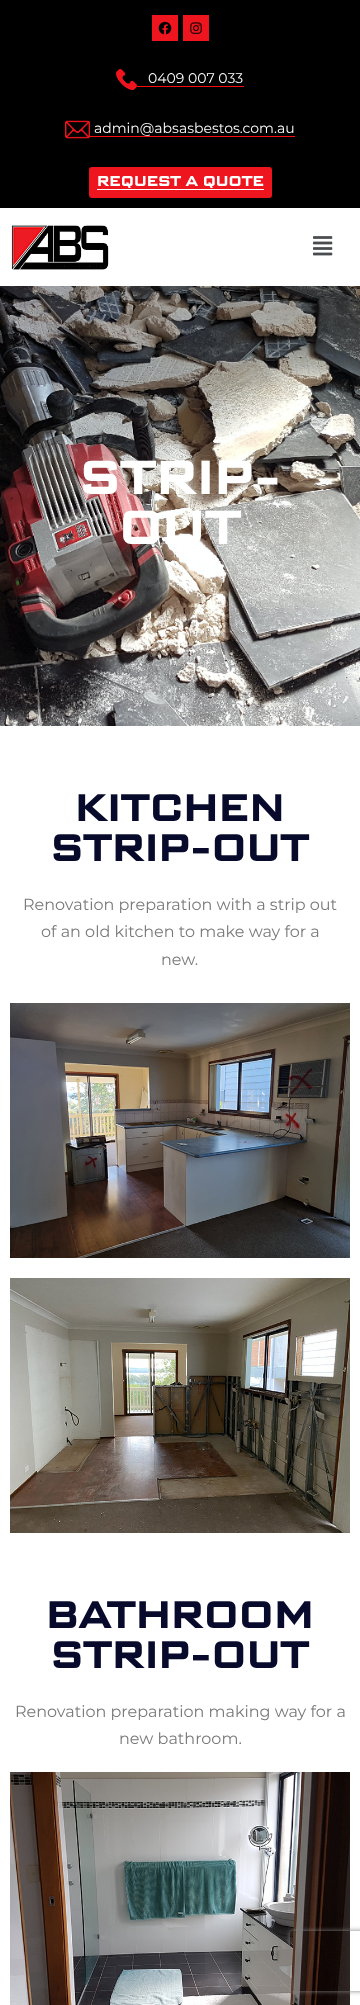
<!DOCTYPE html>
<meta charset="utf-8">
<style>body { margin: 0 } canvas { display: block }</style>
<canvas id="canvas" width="360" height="2005"></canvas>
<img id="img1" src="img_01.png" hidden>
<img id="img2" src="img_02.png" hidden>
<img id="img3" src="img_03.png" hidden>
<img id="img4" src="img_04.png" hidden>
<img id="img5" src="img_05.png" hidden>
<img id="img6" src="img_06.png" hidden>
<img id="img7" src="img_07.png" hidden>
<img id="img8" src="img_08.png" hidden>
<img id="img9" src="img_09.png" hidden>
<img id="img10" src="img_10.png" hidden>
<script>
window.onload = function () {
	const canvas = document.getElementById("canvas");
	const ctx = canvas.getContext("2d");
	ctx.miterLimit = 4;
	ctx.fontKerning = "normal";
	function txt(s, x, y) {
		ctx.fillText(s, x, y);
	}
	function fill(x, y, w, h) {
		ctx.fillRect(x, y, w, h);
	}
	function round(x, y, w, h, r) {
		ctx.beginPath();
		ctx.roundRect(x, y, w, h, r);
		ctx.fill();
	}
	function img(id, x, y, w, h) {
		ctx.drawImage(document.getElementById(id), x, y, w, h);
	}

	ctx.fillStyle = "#FFFFFF";
	fill(0, 0, 360, 2005);
	ctx.fillStyle = "#000000";
	fill(0, 0, 360, 208);
	ctx.fillStyle = "#EE151F";
	fill(152, 15, 26, 26);
	img("img1", 158, 21, 14, 14);
	fill(183, 15, 26, 26);
	img("img2", 190, 22, 12, 12);
	img("img3", 116, 69, 21, 21);
	ctx.fillStyle = "#FC0D0D";
	fill(137, 86, 107, 1);
	img("img4", 65, 120, 25, 19);
	fill(90, 136, 205, 1);
	ctx.fillStyle = "#EE151F";
	round(89, 167, 183, 31, 3);
	ctx.fillStyle = "#FFFFFF";
	fill(97, 189, 167, 1);
	img("img5", 10, 224, 99, 46);
	img("img6", 313, 236, 20, 20);
	img("img7", 0, 286, 360, 440);
	img("img8", 10, 1003, 340, 255);
	img("img9", 10, 1278, 340, 255);
	img("img10", 10, 1772, 340, 233);
	ctx.save();
	ctx.beginPath();
	ctx.moveTo(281, 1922);
	ctx.lineTo(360, 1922);
	ctx.lineTo(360, 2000);
	ctx.lineTo(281, 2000);
	ctx.closePath();
	ctx.moveTo(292, 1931);
	ctx.lineTo(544, 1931);
	ctx.bezierCurveTo(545, 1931, 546, 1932, 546, 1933);
	ctx.lineTo(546, 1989);
	ctx.bezierCurveTo(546, 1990, 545, 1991, 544, 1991);
	ctx.lineTo(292, 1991);
	ctx.bezierCurveTo(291, 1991, 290, 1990, 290, 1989);
	ctx.lineTo(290, 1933);
	ctx.bezierCurveTo(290, 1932, 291, 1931, 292, 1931);
	ctx.closePath();
	ctx.clip("evenodd");
	ctx.fillStyle = "#808080";
	ctx.filter = "blur(2.5px)";
	ctx.beginPath();
	ctx.roundRect(290, 1931, 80, 60, 2);
	ctx.fill();
	ctx.filter = "none";
	ctx.restore();
	ctx.font = "14px Montserrat";
	txt("0409 007 033", 148, 83);
	txt("admin@absasbestos.com.au", 94, 133);
	ctx.font = "bold 15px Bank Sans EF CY";
	txt("REQUEST A QUOTE", 97, 186);
	ctx.font = "bold 50px Bank Sans EF CY";
	txt("STRIP-", 80, 494);
	txt("OUT", 119, 544);
	ctx.font = "bold 40px Bank Sans EF CY";
	ctx.fillStyle = "#070A2A";
	txt("KITCHEN", 75, 821);
	txt("STRIP-OUT", 51, 861);
	ctx.font = "16px Montserrat";
	ctx.fillStyle = "#7A7A7A";
	txt("Renovation preparation with a strip out", 23, 910);
	txt("of an old kitchen to make way for a", 41, 937);
	txt("new.", 161, 965);
	ctx.font = "bold 40px Bank Sans EF CY";
	ctx.fillStyle = "#070A2A";
	txt("BATHROOM", 46, 1628);
	txt("STRIP-OUT", 51, 1668);
	ctx.font = "16px Montserrat";
	ctx.fillStyle = "#7A7A7A";
	txt("Renovation preparation making way for a", 15, 1717);
	txt("new bathroom.", 119, 1744);
};
</script>
